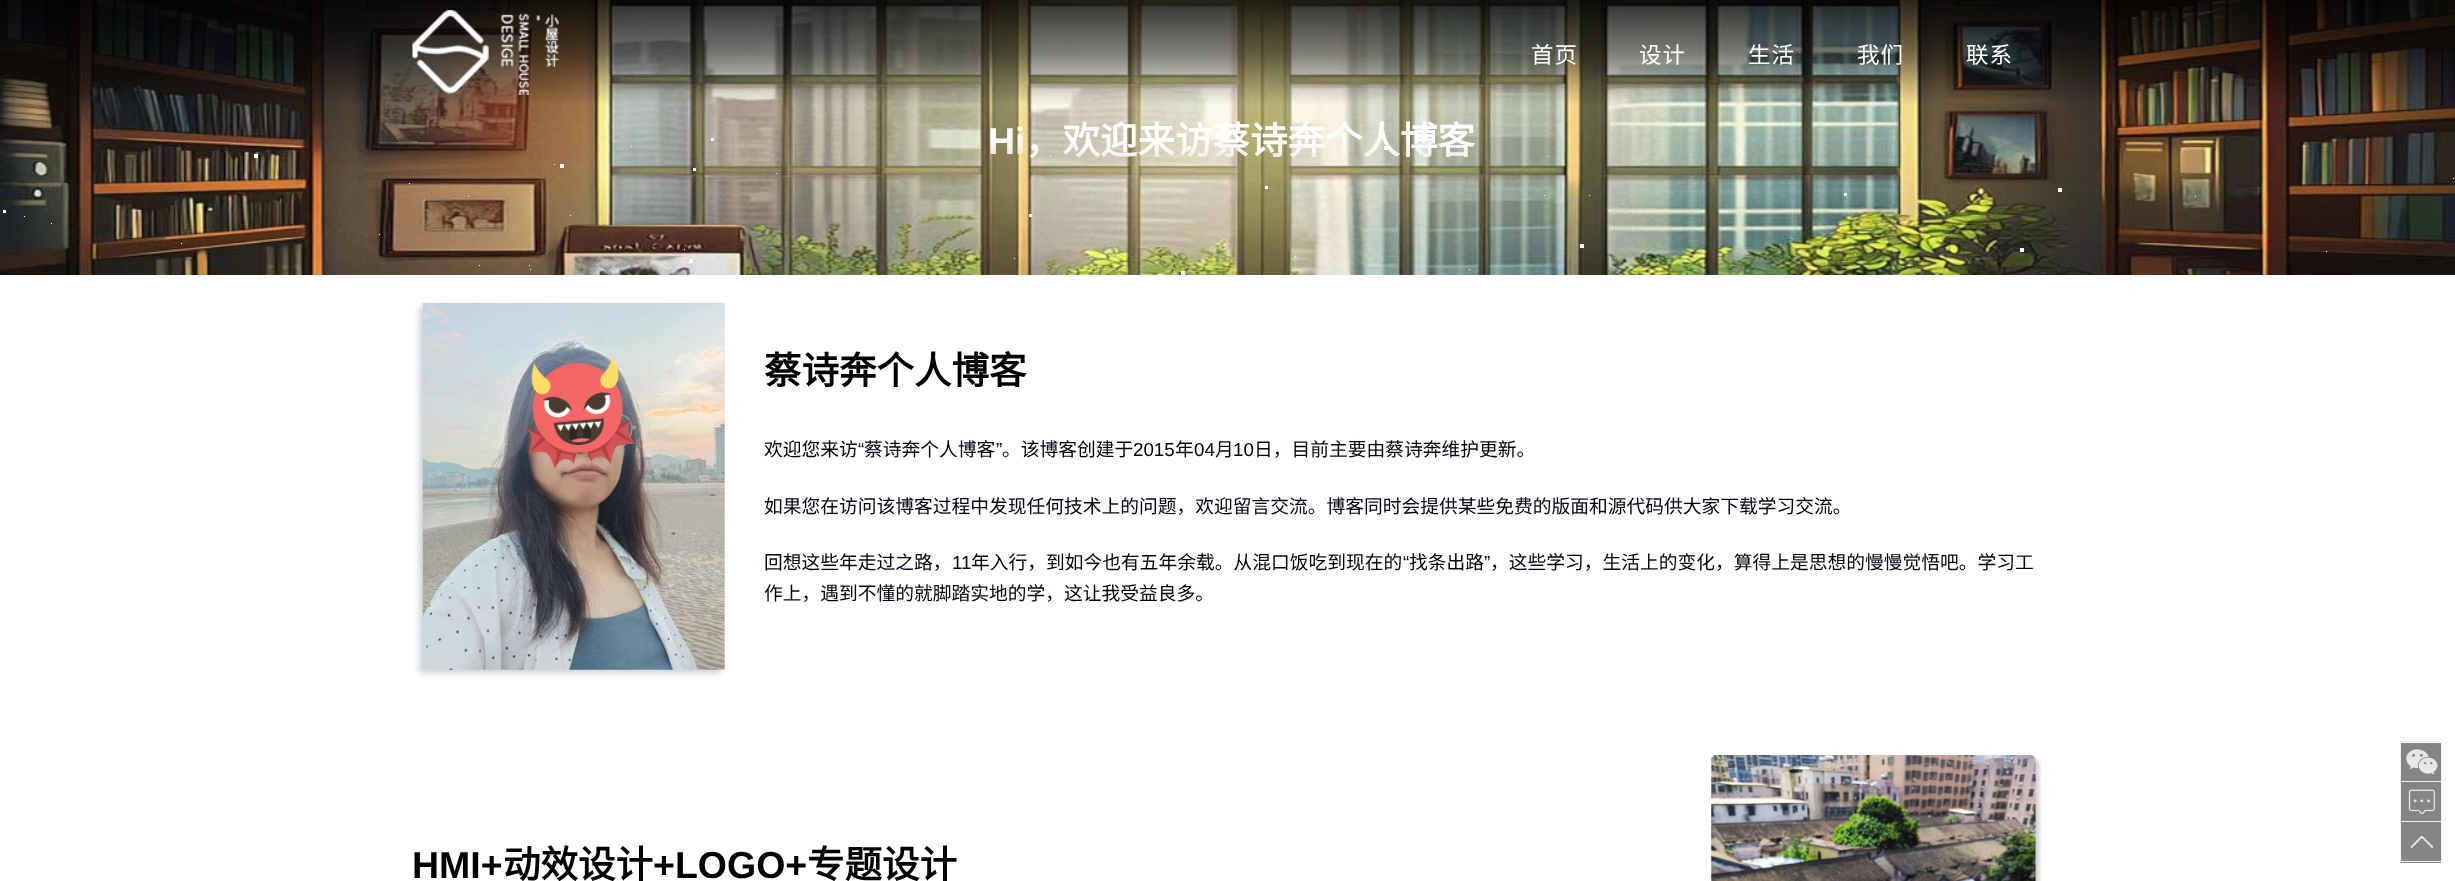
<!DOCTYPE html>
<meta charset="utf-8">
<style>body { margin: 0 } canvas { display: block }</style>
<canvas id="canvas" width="2455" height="881"></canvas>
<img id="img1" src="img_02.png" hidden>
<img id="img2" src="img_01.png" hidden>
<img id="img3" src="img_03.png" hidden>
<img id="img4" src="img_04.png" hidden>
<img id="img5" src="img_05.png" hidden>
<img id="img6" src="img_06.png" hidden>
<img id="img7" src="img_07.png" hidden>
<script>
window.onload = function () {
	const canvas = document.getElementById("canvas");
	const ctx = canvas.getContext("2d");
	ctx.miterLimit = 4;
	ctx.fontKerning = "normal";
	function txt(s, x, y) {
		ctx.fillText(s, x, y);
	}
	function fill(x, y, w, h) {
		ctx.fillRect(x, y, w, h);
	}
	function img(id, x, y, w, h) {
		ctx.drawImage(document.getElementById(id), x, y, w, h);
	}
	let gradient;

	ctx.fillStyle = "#FFFFFF";
	fill(0, 0, 2455, 881);
	img("img1", 0, 0, 2455, 275);
	img("img2", 412, 10, 147, 85);
	fill(3, 210, 3, 3);
	fill(1029, 214, 3, 3);
	fill(693, 168, 3, 3);
	fill(711, 138, 3, 3);
	fill(1844, 193, 3, 3);
	fill(1265, 186, 3, 3);
	fill(1780, 244, 1, 1);
	fill(24, 216, 1, 1);
	fill(529, 265, 1, 1);
	fill(1050, 156, 1, 1);
	fill(379, 234, 1, 1);
	fill(181, 243, 1, 1);
	fill(1646, 163, 1, 1);
	fill(1014, 258, 1, 1);
	fill(1174, 271, 1, 1);
	fill(1548, 156, 1, 1);
	fill(479, 265, 1, 1);
	fill(1608, 210, 1, 1);
	fill(614, 141, 1, 1);
	fill(1855, 254, 1, 1);
	fill(554, 164, 1, 1);
	fill(530, 269, 1, 1);
	fill(1913, 140, 1, 1);
	fill(1589, 195, 1, 1);
	fill(1380, 140, 1, 1);
	fill(1544, 195, 1, 1);
	fill(2195, 196, 1, 1);
	fill(51, 223, 1, 1);
	fill(2453, 178, 1, 1);
	fill(776, 173, 1, 1);
	fill(1469, 269, 1, 1);
	fill(468, 196, 1, 1);
	fill(684, 249, 1, 1);
	fill(1295, 256, 1, 1);
	fill(409, 183, 1, 1);
	fill(570, 215, 1, 1);
	fill(2326, 251, 1, 1);
	fill(631, 146, 1, 1);
	fill(1384, 146, 4, 4);
	fill(2020, 248, 4, 4);
	fill(689, 259, 4, 4);
	fill(254, 154, 4, 4);
	fill(2058, 188, 4, 4);
	fill(1158, 274, 4, 1);
	fill(560, 164, 4, 4);
	fill(1580, 244, 4, 4);
	fill(1181, 271, 4, 4);
	img("img3", 415, 302, 310, 376);
	img("img4", 1711, 755, 331, 126);
	ctx.fillStyle = "#F1F1F1";
	fill(2400, 741, 43, 1);
	fill(2441, 741, 1, 122);
	fill(2400, 741, 1, 122);
	ctx.fillStyle = "#858585";
	fill(2401, 743, 40, 120);
	ctx.fillStyle = "#F1F1F1";
	fill(2401, 781, 40, 1);
	img("img5", 2406, 749, 32, 26);
	fill(2401, 821, 40, 1);
	img("img6", 2408, 789, 27, 26);
	fill(2401, 861, 40, 1);
	img("img7", 2410, 836, 24, 12);
	ctx.letterSpacing = "1px";
	ctx.font = "22.5px Noto Sans CJK SC";
	ctx.fillStyle = "#FFFFFF";
	txt("首页", 1531, 63);
	txt("设计", 1639, 63);
	txt("生活", 1748, 63);
	txt("我们", 1857, 63);
	txt("联系", 1966, 63);
	ctx.letterSpacing = "0px";
	ctx.font = "bold 37.5px Liberation Sans";
	gradient = ctx.createLinearGradient(1231, 178, 1231, 98);
	gradient.addColorStop(0, "#D1CCB3");
	gradient.addColorStop(0.5, "#FFFFFF");
	gradient.addColorStop(1, "#FFFFFF");
	ctx.fillStyle = gradient;
	txt("Hi", 988, 154);
	ctx.font = "bold 37.5px Noto Sans CJK SC";
	gradient = ctx.createLinearGradient(1231, 178, 1231, 98);
	gradient.addColorStop(0, "#E5E3D7");
	gradient.addColorStop(0.5, "#FFFFFF");
	gradient.addColorStop(1, "#FFFFFF");
	ctx.fillStyle = gradient;
	txt("，欢迎来访蔡诗奔个人博客", 1025, 154);
	ctx.fillStyle = "#000000";
	txt("蔡诗奔个人博客", 764, 384);
	ctx.font = "18.75px Noto Sans CJK SC";
	ctx.fillStyle = "#030014";
	txt("欢迎您来访", 764, 456);
	ctx.font = "18.75px Liberation Sans";
	txt("“", 858, 456);
	ctx.font = "18.75px Noto Sans CJK SC";
	txt("蔡诗奔个人博客", 864, 456);
	ctx.font = "18.75px Liberation Sans";
	txt("”", 996, 456);
	ctx.font = "18.75px Noto Sans CJK SC";
	txt("。该博客创建于", 1002, 456);
	ctx.font = "18.75px Liberation Sans";
	txt("2015", 1133, 456);
	ctx.font = "18.75px Noto Sans CJK SC";
	txt("年", 1175, 456);
	ctx.font = "18.75px Liberation Sans";
	txt("04", 1194, 456);
	ctx.font = "18.75px Noto Sans CJK SC";
	txt("月", 1215, 456);
	ctx.font = "18.75px Liberation Sans";
	txt("10", 1233, 456);
	ctx.font = "18.75px Noto Sans CJK SC";
	txt("日，目前主要由蔡诗奔维护更新。", 1254, 456);
	txt("如果您在访问该博客过程中发现任何技术上的问题，欢迎留言交流。博客同时会提供某些免费的版面和源代码供大家下载学习交流。", 764, 513);
	txt("回想这些年走过之路，", 764, 569);
	ctx.font = "18.75px Liberation Sans";
	txt("11", 952, 569);
	ctx.font = "18.75px Noto Sans CJK SC";
	txt("年入行，到如今也有五年余载。从混口饭吃到现在的", 971, 569);
	ctx.font = "18.75px Liberation Sans";
	txt("“", 1403, 569);
	ctx.font = "18.75px Noto Sans CJK SC";
	txt("找条出路", 1409, 569);
	ctx.font = "18.75px Liberation Sans";
	txt("”", 1484, 569);
	ctx.font = "18.75px Noto Sans CJK SC";
	txt("，这些学习，生活上的变化，算得上是思想的慢慢觉悟吧。学习工", 1490, 569);
	txt("作上，遇到不懂的就脚踏实地的学，这让我受益良多。", 764, 600);
	ctx.font = "bold 37.5px Liberation Sans";
	ctx.fillStyle = "#000000";
	txt("HMI+", 412, 878);
	ctx.font = "bold 37.5px Noto Sans CJK SC";
	txt("动效设计", 503, 878);
	ctx.font = "bold 37.5px Liberation Sans";
	txt("+LOGO+", 653, 878);
	ctx.font = "bold 37.5px Noto Sans CJK SC";
	txt("专题设计", 807, 878);
};
</script>
